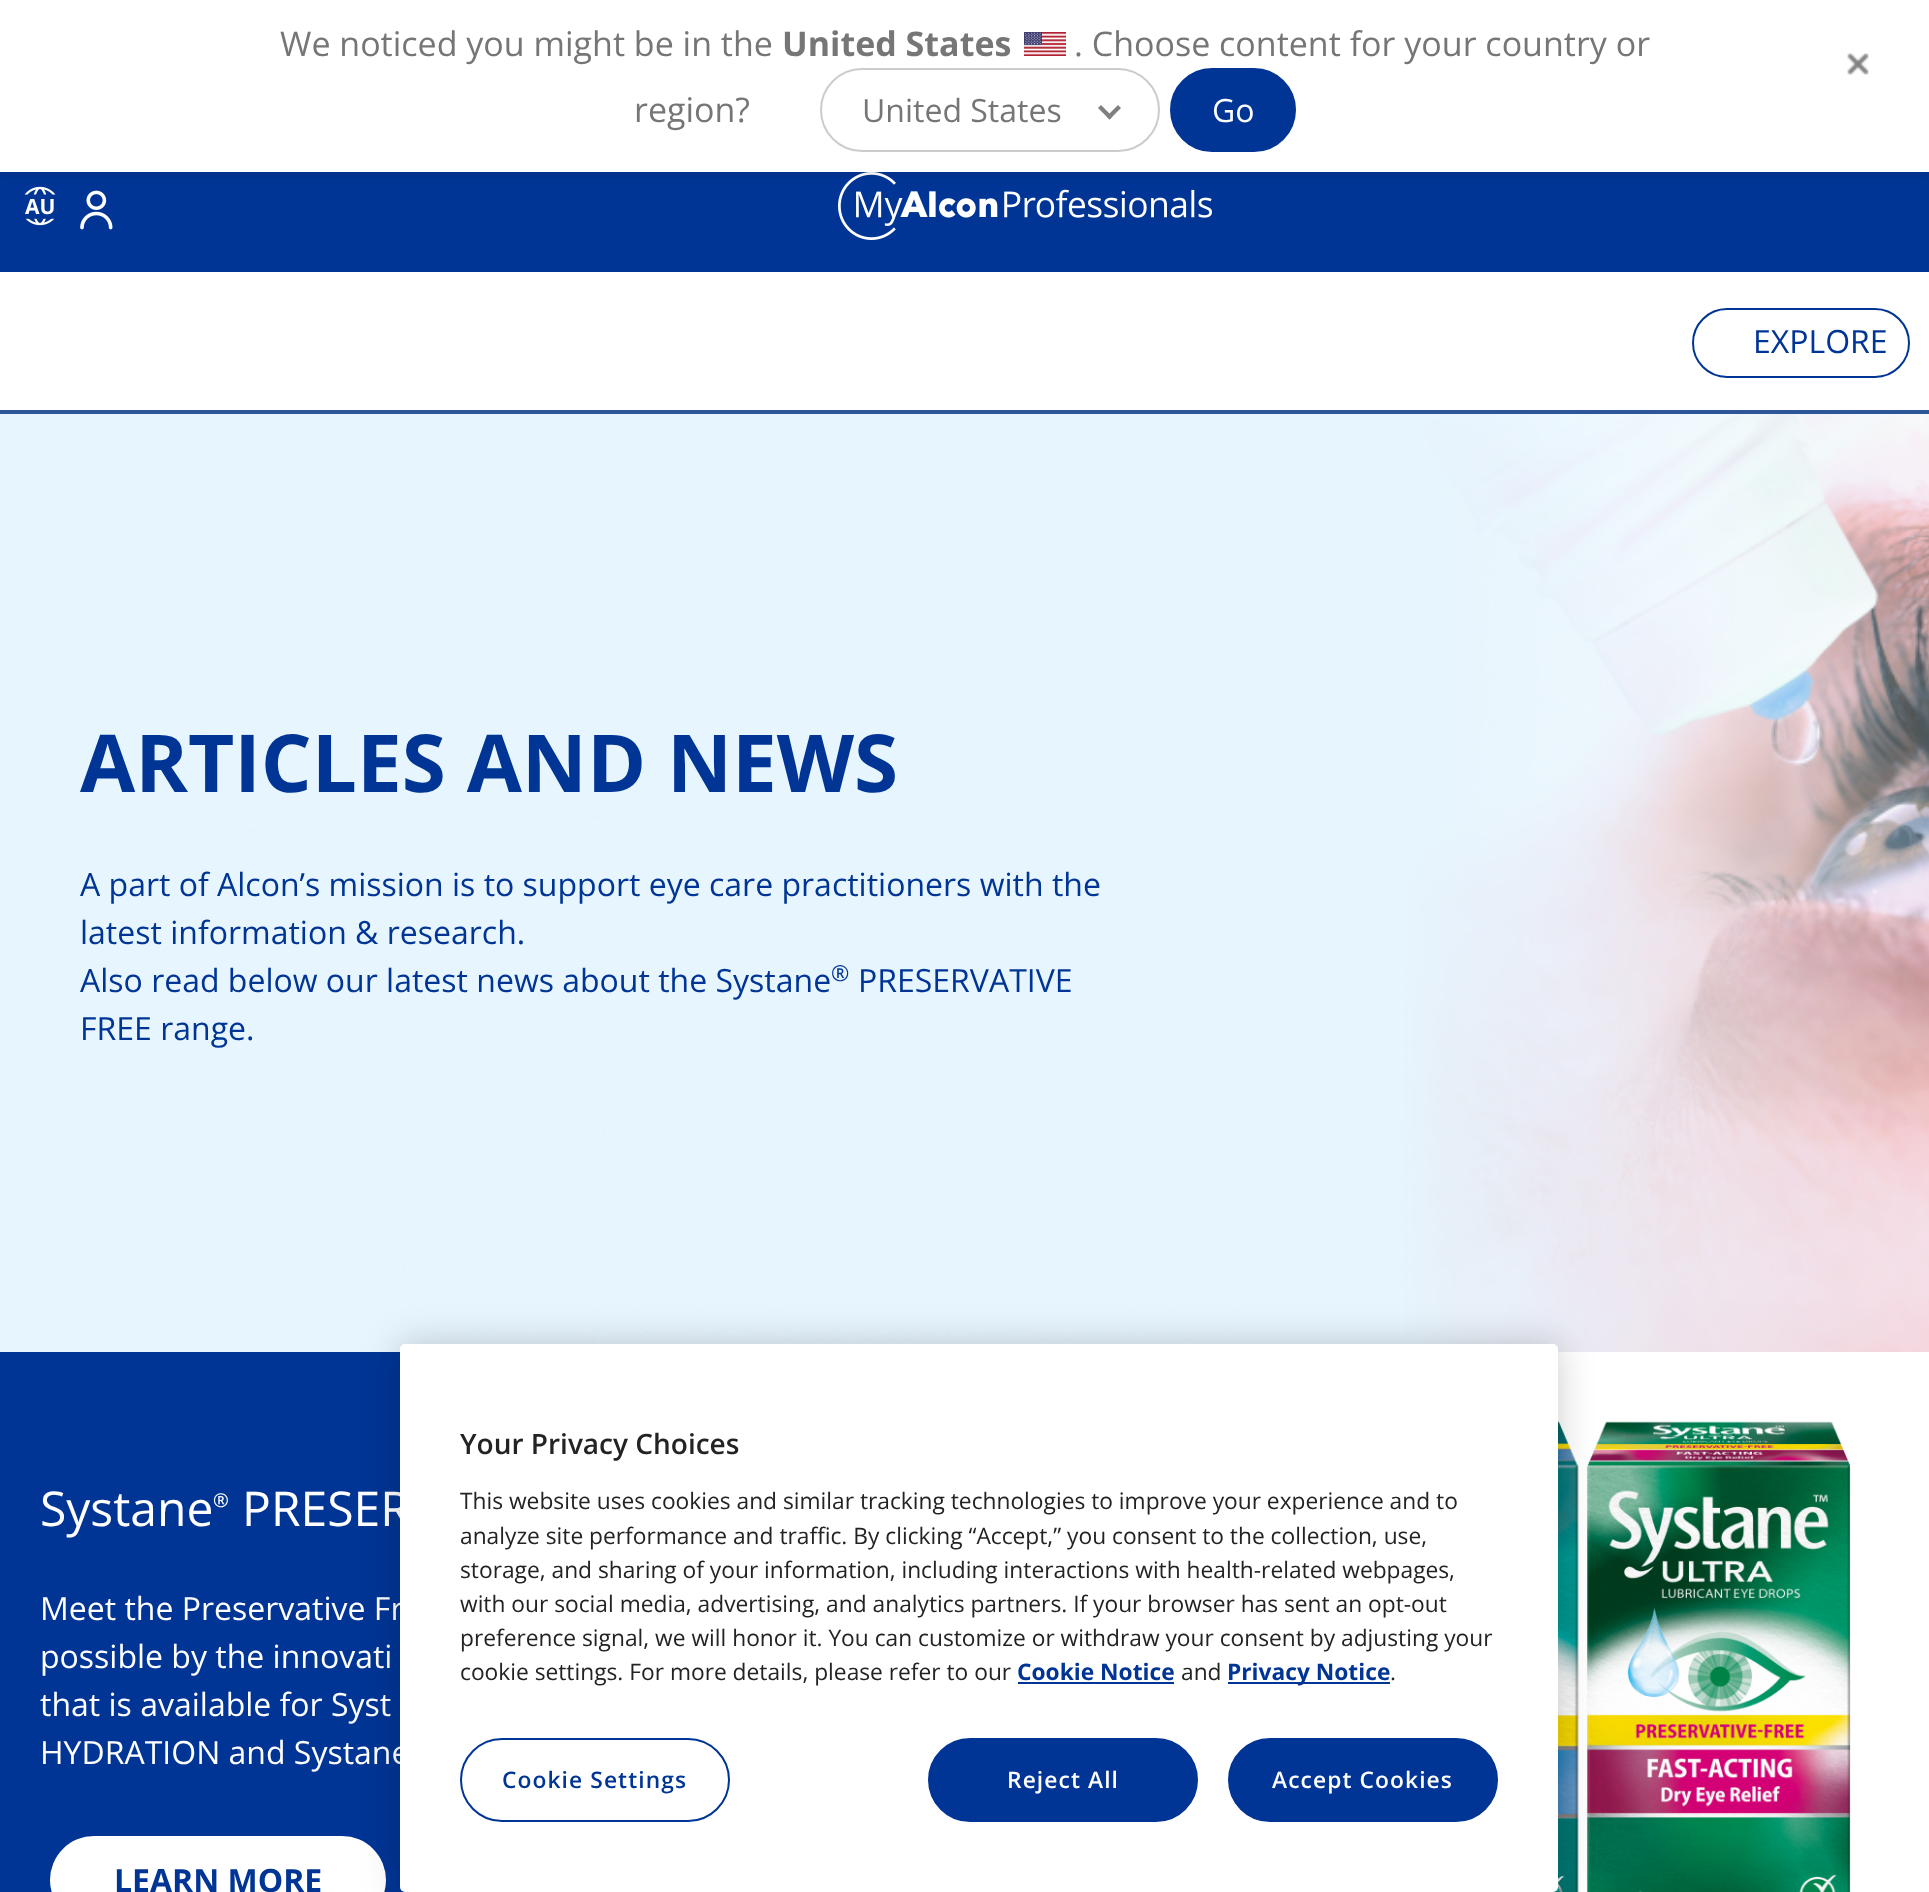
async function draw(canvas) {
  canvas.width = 1929
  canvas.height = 1892
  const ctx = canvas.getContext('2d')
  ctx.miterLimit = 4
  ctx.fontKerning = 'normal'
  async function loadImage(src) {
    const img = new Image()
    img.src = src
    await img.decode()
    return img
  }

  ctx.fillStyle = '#fff'
  ctx.fillRect(0, 0, 1929, 1892)
  ctx.fillStyle = '#003595'
  ctx.fillRect(0, 172, 1929, 100)
  ctx.drawImage(await loadImage('image2.png'), 24, 186, 32, 40)
  ctx.drawImage(await loadImage('image4.png'), 838, 172, 374, 68)
  ctx.save()
  ctx.beginPath()
  ctx.rect(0, 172, 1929, 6)
  ctx.clip()
  ctx.fillStyle = '#0000001a'
  ctx.filter = 'blur(5px)'
  ctx.beginPath()
  ctx.rect(0, 2, 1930, 172)
  ctx.fill()
  ctx.filter = 'none'
  ctx.restore()
  ctx.font = '34px Open Sans'
  ctx.fillStyle = '#767676'
  ctx.fillText('We noticed you might be in the', 280, 56)
  ctx.font = 'bold 34px Open Sans'
  ctx.fillText('United States', 782, 56)
  ctx.drawImage(await loadImage('image0.png'), 1024, 32, 42, 24)
  ctx.font = '34px Open Sans'
  ctx.fillText('. Choose content for your country or', 1074, 56)
  ctx.fillText('region?', 634, 122)
  ctx.drawImage(await loadImage('image1.png'), 1847, 53, 22, 22)
  ctx.beginPath()
  ctx.roundRect(821, 69, 338, 82, 41)
  ctx.strokeStyle = '#ccc'
  ctx.lineWidth = 2
  ctx.stroke()
  ctx.font = '32px Open Sans'
  ctx.fillText('United States', 862, 122)
  ctx.fillStyle = '#808080'
  ctx.beginPath()
  ctx.moveTo(1118, 105)
  ctx.lineTo(1121, 108)
  ctx.lineTo(1109.5, 119.5)
  ctx.lineTo(1106.5, 116.5)
  ctx.closePath()
  ctx.fill()
  ctx.beginPath()
  ctx.moveTo(1101, 105)
  ctx.lineTo(1112.5, 116.5)
  ctx.lineTo(1109.5, 119.5)
  ctx.lineTo(1098, 108)
  ctx.closePath()
  ctx.fill()
  ctx.fillStyle = '#003595'
  ctx.beginPath()
  ctx.roundRect(1171, 69, 124, 82, 41)
  ctx.fill()
  ctx.strokeStyle = '#003595'
  ctx.stroke()
  ctx.fillStyle = '#fff'
  ctx.fillText('Go', 1212, 122)
  ctx.font = 'bold 21px Open Sans'
  ctx.fillText('AU', 25, 214)
  ctx.drawImage(await loadImage('image3.png'), 80, 190, 33, 40)
  ctx.beginPath()
  ctx.roundRect(1693, 309, 216, 68, 34)
  ctx.stroke()
  ctx.font = '32px Open Sans'
  ctx.fillStyle = '#003595'
  ctx.fillText('EXPLORE', 1753, 353)
  ctx.fillStyle = '#2c5697'
  ctx.fillRect(0, 410, 1929, 4)
  ctx.drawImage(await loadImage('image5.png'), 0, 414, 1929, 938)
  ctx.font = 'bold 80px Open Sans'
  ctx.fillStyle = '#003595'
  ctx.fillText('ARTICLES AND NEWS', 80, 792)
  ctx.font = '32px Open Sans'
  ctx.fillText('A part of Alcon’s mission is to support eye care practitioners with the', 80, 896)
  ctx.fillText('latest information & research.', 80, 944)
  ctx.fillText('Also read below our latest news about the Systane', 80, 992)
  ctx.font = '22px Open Sans'
  ctx.fillText('®', 831, 981)
  ctx.font = '32px Open Sans'
  ctx.fillText('PRESERVATIVE', 858, 992)
  ctx.fillText('FREE range.', 80, 1040)
  ctx.fillRect(0, 1352, 405, 540)
  ctx.font = '48px Open Sans'
  ctx.fillStyle = '#fff'
  ctx.fillText('Systane', 40, 1526)
  ctx.font = '500 19px Open Sans'
  ctx.fillText('®', 213, 1507)
  ctx.font = '48px Open Sans'
  ctx.fillText('PRESER', 242, 1526)
  ctx.font = '32px Open Sans'
  ctx.fillText('Meet the Preservative Fr', 40, 1620)
  ctx.fillText('possible by the innovati', 40, 1668)
  ctx.fillText('that is available for Syst', 40, 1716)
  ctx.fillText('HYDRATION and Systane', 40, 1764)
  ctx.beginPath()
  ctx.roundRect(50, 1836, 336, 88, 44)
  ctx.fill()
  ctx.font = 'bold 32px Open Sans'
  ctx.fillStyle = '#003595'
  ctx.fillText('LEARN MORE', 114, 1892)
  ctx.drawImage(await loadImage('image6.png'), 1553, 1421, 298, 471)
  ctx.fillStyle = '#00000033'
  ctx.filter = 'blur(18px)'
  ctx.beginPath()
  ctx.roundRect(400, 1344, 1158, 548, 5)
  ctx.fill()
  ctx.filter = 'none'
  ctx.fillStyle = '#fff'
  ctx.beginPath()
  ctx.roundRect(400, 1344, 1158, 548, 5)
  ctx.fill()
  ctx.font = '600 28px Open Sans'
  ctx.fillStyle = '#232323'
  ctx.fillText('Your Privacy Choices', 460, 1454)
  ctx.font = '22.75px Open Sans'
  ctx.fillText('This website uses cookies and similar tracking technologies to improve your experience and to', 460, 1509)
  ctx.fillText('analyze site performance and traffic. By clicking “Accept,” you consent to the collection, use,', 460, 1544)
  ctx.fillText('storage, and sharing of your information, including interactions with health-related webpages,', 460, 1578)
  ctx.fillText('with our social media, advertising, and analytics partners. If your browser has sent an opt-out', 460, 1612)
  ctx.fillText('preference signal, we will honor it. You can customize or withdraw your consent by adjusting your', 460, 1646)
  ctx.fillText('cookie settings. For more details, please refer to our', 460, 1680)
  ctx.font = 'bold 22.75px Open Sans'
  ctx.fillStyle = '#003595'
  ctx.fillText('Cookie Notice', 1017, 1680)
  ctx.fillRect(1018, 1682, 156, 2)
  ctx.font = '22.75px Open Sans'
  ctx.fillStyle = '#232323'
  ctx.fillText('and', 1181, 1680)
  ctx.fillStyle = '#003595'
  ctx.fillRect(1228, 1682, 162, 2)
  ctx.font = 'bold 22.75px Open Sans'
  ctx.fillText('Privacy Notice', 1227, 1680)
  ctx.font = '22.75px Open Sans'
  ctx.fillStyle = '#232323'
  ctx.fillText('.', 1390, 1680)
  ctx.beginPath()
  ctx.roundRect(461, 1739, 268, 82, 41)
  ctx.stroke()
  ctx.letterSpacing = '1.1px'
  ctx.font = '600 22.75px Open Sans'
  ctx.fillStyle = '#003595'
  ctx.fillText('Cookie Settings', 502, 1788)
  ctx.beginPath()
  ctx.roundRect(929, 1739, 268, 82, 41)
  ctx.fill()
  ctx.stroke()
  ctx.fillStyle = '#fff'
  ctx.fillText('Reject All', 1007, 1788)
  ctx.fillStyle = '#003595'
  ctx.beginPath()
  ctx.roundRect(1229, 1739, 268, 82, 41)
  ctx.fill()
  ctx.stroke()
  ctx.fillStyle = '#fff'
  ctx.fillText('Accept Cookies', 1272, 1788)
}

draw(document.querySelector('canvas'))
